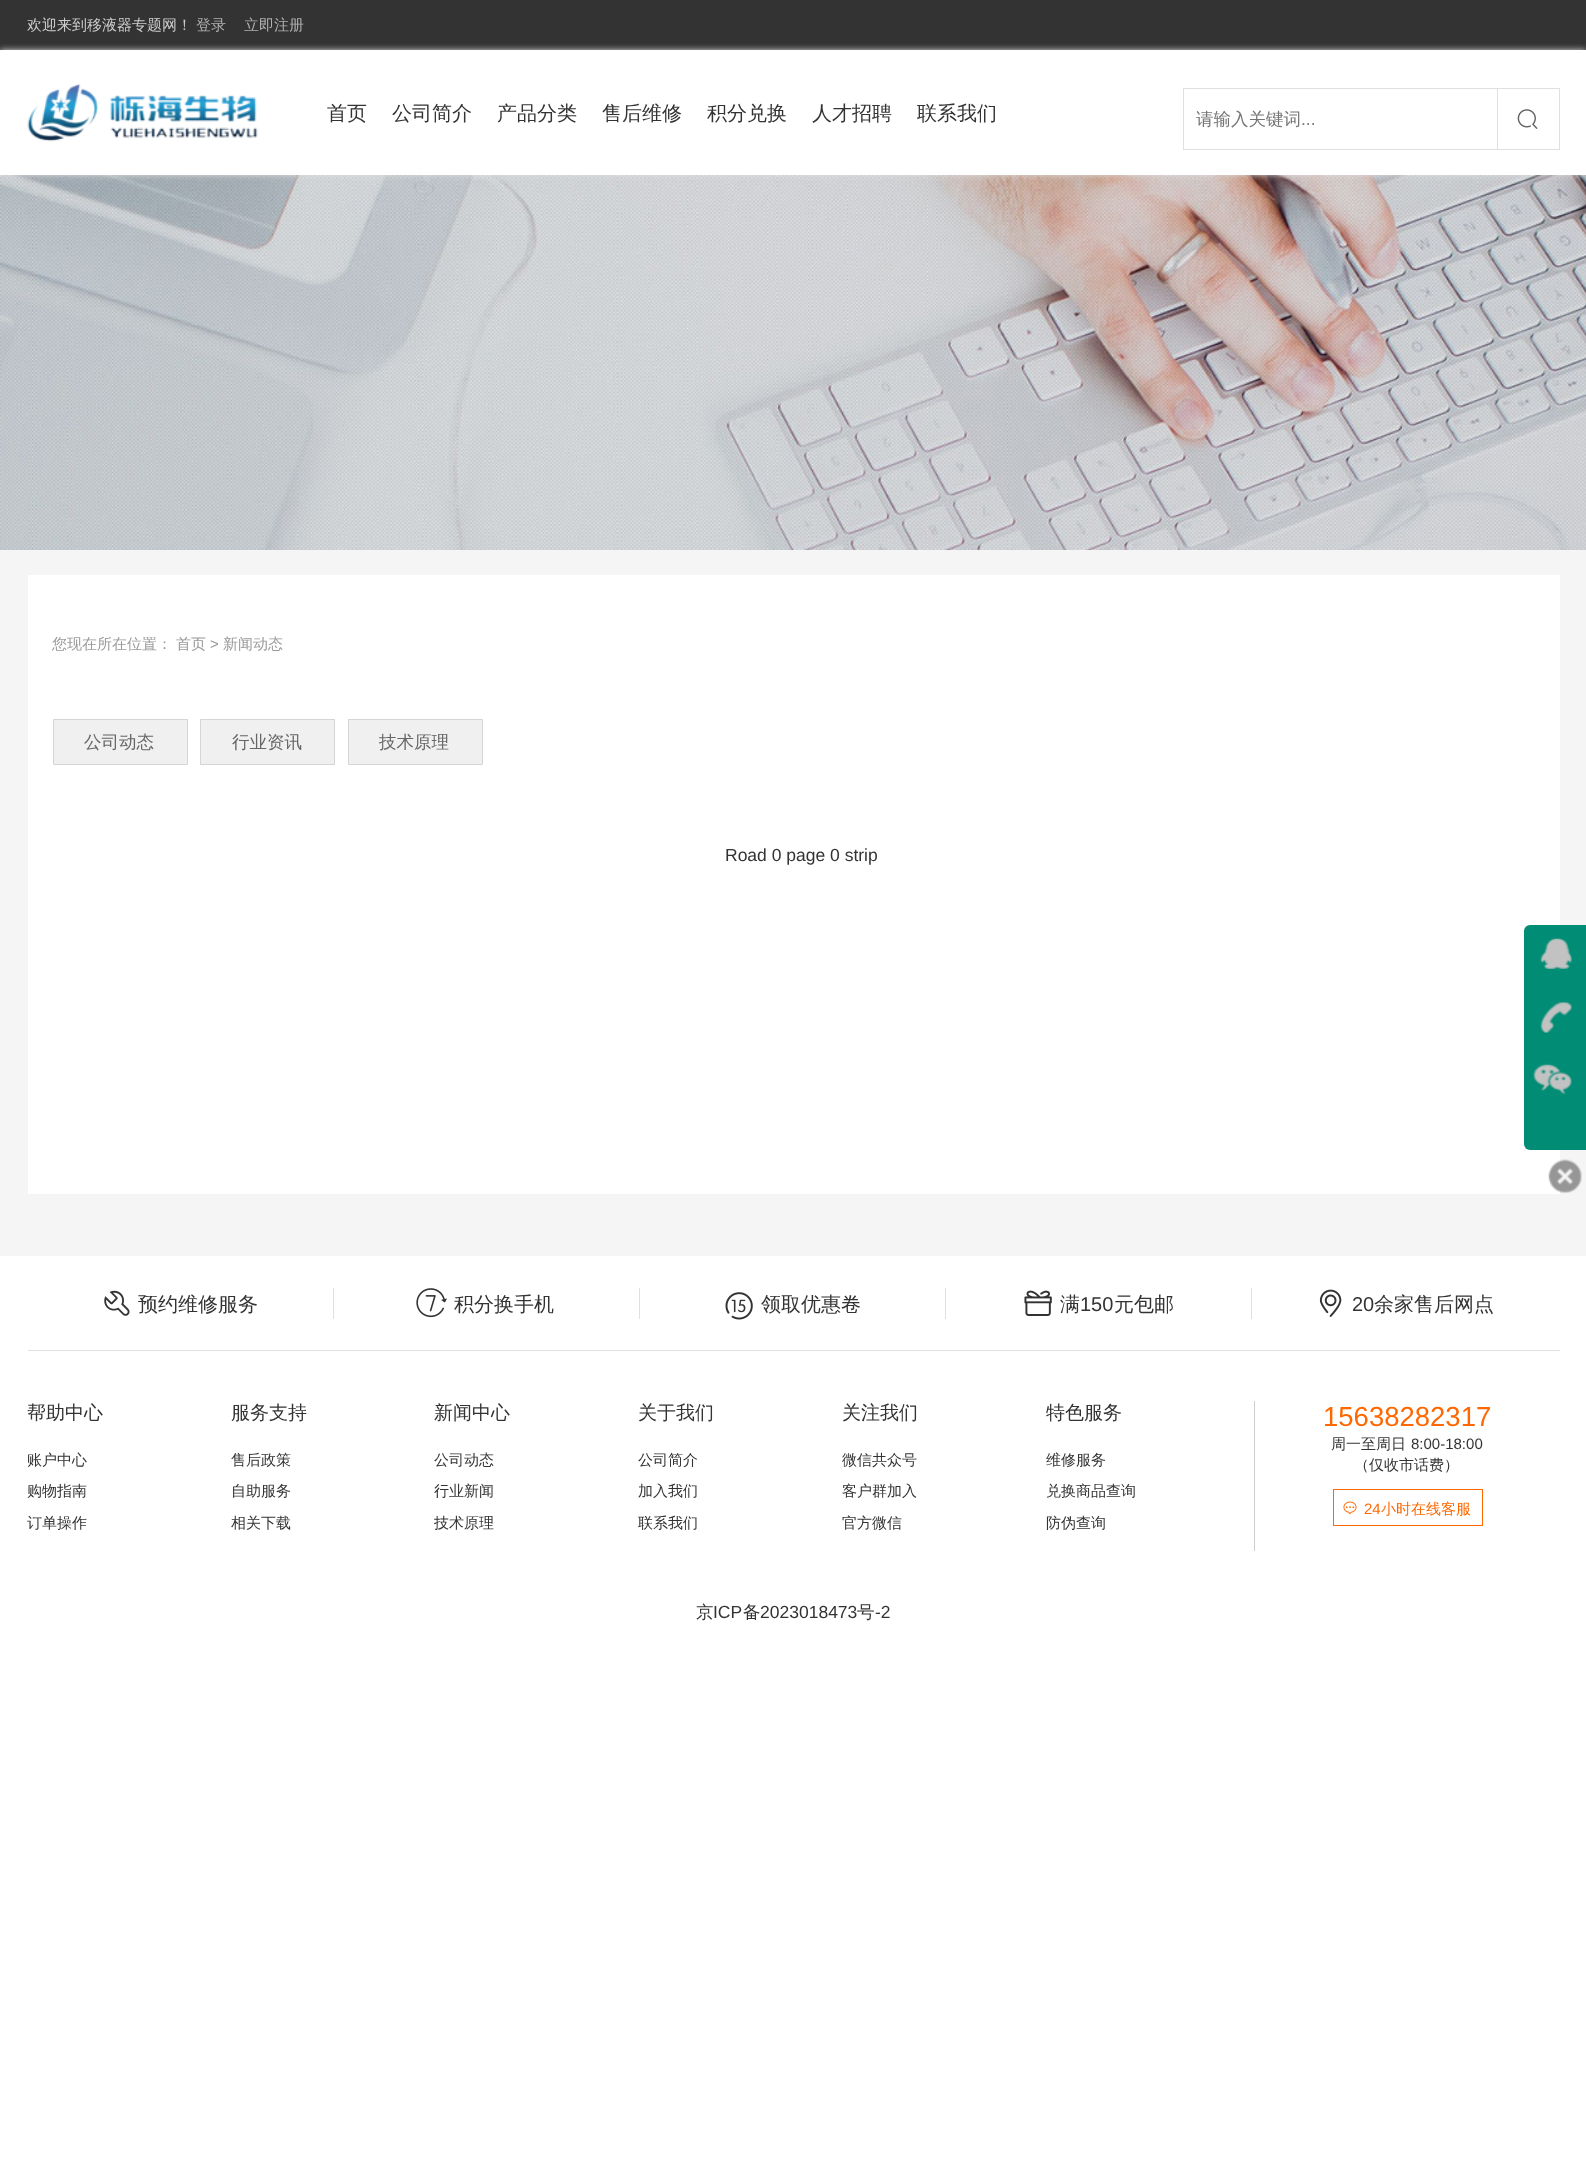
async function draw(canvas) {
  canvas.width = 1586
  canvas.height = 2165
  const ctx = canvas.getContext('2d')
  ctx.miterLimit = 4
  ctx.fontKerning = 'normal'
  async function loadImage(src) {
    const img = new Image()
    img.src = src
    await img.decode()
    return img
  }

  ctx.fillStyle = '#fff'
  ctx.fillRect(0, 0, 1586, 2165)
  ctx.fillStyle = '#333'
  ctx.fillRect(0, 0, 1586, 50)
  ctx.font = '500 15px WenQuanYi Zen Hei'
  ctx.fillStyle = '#ccc'
  ctx.fillText('欢迎来到移液器专题网！', 27, 30)
  ctx.fillStyle = '#b0b0b0'
  ctx.fillText('登录', 196, 30)
  ctx.fillText('立即注册', 244, 30)
  ctx.drawImage(await loadImage('image2.png'), 0, 175, 1586, 375)
  ctx.save()
  ctx.beginPath()
  ctx.moveTo(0, 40)
  ctx.lineTo(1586, 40)
  ctx.lineTo(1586, 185)
  ctx.lineTo(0, 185)
  ctx.closePath()
  ctx.moveTo(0, 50)
  ctx.lineTo(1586, 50)
  ctx.lineTo(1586, 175)
  ctx.lineTo(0, 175)
  ctx.closePath()
  ctx.clip('evenodd')
  ctx.fillStyle = '#ddd'
  ctx.filter = 'blur(3px)'
  ctx.beginPath()
  ctx.rect(0, 50, 1586, 125)
  ctx.fill()
  ctx.filter = 'none'
  ctx.restore()
  ctx.drawImage(await loadImage('image0.png'), 27, 83, 231, 59)
  ctx.font = '500 20px WenQuanYi Zen Hei'
  ctx.fillStyle = '#333'
  ctx.fillText('首页', 327, 120)
  ctx.fillText('公司简介', 392, 120)
  ctx.fillText('产品分类', 497, 120)
  ctx.fillText('售后维修', 602, 120)
  ctx.fillText('积分兑换', 707, 120)
  ctx.fillText('人才招聘', 812, 120)
  ctx.fillText('联系我们', 917, 120)
  ctx.strokeStyle = '#e0e0e0'
  ctx.strokeRect(1183.5, 88.5, 314, 61)
  ctx.font = '500 17.5px WenQuanYi Zen Hei'
  ctx.fillStyle = '#757575'
  ctx.fillText('请输入关键词', 1196, 125)
  ctx.font = '17.5px Liberation Sans'
  ctx.fillText('...', 1301, 125)
  ctx.fillStyle = '#e0e0e0'
  ctx.fillRect(1498, 88, 62, 1)
  ctx.fillRect(1559, 88, 1, 62)
  ctx.fillRect(1498, 149, 62, 1)
  ctx.drawImage(await loadImage('image1.png'), 1517, 109, 21, 20)
  ctx.fillStyle = '#f5f5f5'
  ctx.fillRect(0, 550, 1586, 706)
  ctx.fillStyle = '#fff'
  ctx.fillRect(28, 575, 1532, 619)
  ctx.font = '500 15px WenQuanYi Zen Hei'
  ctx.fillStyle = '#999'
  ctx.fillText('您现在所在位置：', 52, 649)
  ctx.fillText('首页', 176, 649)
  ctx.font = '15px Liberation Sans'
  ctx.fillText('>', 210, 649)
  ctx.font = '500 15px WenQuanYi Zen Hei'
  ctx.fillText('新闻动态', 223, 649)
  ctx.fillStyle = '#f0f0f0'
  ctx.beginPath()
  ctx.rect(53.5, 719.5, 134, 45)
  ctx.fill()
  ctx.strokeStyle = '#d5d5d5'
  ctx.stroke()
  ctx.font = '500 17.5px WenQuanYi Zen Hei'
  ctx.fillStyle = '#666'
  ctx.fillText('公司动态', 84, 748)
  ctx.fillStyle = '#f0f0f0'
  ctx.beginPath()
  ctx.rect(200.5, 719.5, 134, 45)
  ctx.fill()
  ctx.stroke()
  ctx.fillStyle = '#666'
  ctx.fillText('行业资讯', 232, 748)
  ctx.fillStyle = '#f0f0f0'
  ctx.beginPath()
  ctx.rect(348.5, 719.5, 134, 45)
  ctx.fill()
  ctx.stroke()
  ctx.fillStyle = '#666'
  ctx.fillText('技术原理', 379, 748)
  ctx.font = '17.5px Liberation Sans'
  ctx.fillStyle = '#333'
  ctx.fillText('Road 0 page 0 strip', 725, 861)
  ctx.fillStyle = '#018d75'
  ctx.beginPath()
  ctx.roundRect(1524, 925, 62, 225, [6, 0, 0, 6])
  ctx.fill()
  ctx.drawImage(await loadImage('image3.png'), 1540, 938, 32, 31)
  ctx.drawImage(await loadImage('image4.png'), 1540, 1001, 32, 32)
  ctx.drawImage(await loadImage('image5.png'), 1533, 1063, 39, 32)
  ctx.drawImage(await loadImage('image6.png'), 1548, 1159, 34, 34)
  ctx.fillStyle = '#e0e0e0'
  ctx.fillRect(28, 1350, 1532, 1)
  ctx.fillRect(333, 1288, 1, 31)
  ctx.drawImage(await loadImage('image7.png'), 104, 1290, 26, 26)
  ctx.font = '500 20px WenQuanYi Zen Hei'
  ctx.fillStyle = '#333'
  ctx.fillText('预约维修服务', 138, 1311)
  ctx.fillStyle = '#e0e0e0'
  ctx.fillRect(639, 1288, 1, 31)
  ctx.drawImage(await loadImage('image8.png'), 416, 1288, 31, 30)
  ctx.fillStyle = '#333'
  ctx.fillText('积分换手机', 454, 1311)
  ctx.fillStyle = '#e0e0e0'
  ctx.fillRect(945, 1288, 1, 31)
  ctx.drawImage(await loadImage('image9.png'), 725, 1292, 28, 28)
  ctx.fillStyle = '#333'
  ctx.fillText('领取优惠卷', 761, 1311)
  ctx.fillStyle = '#e0e0e0'
  ctx.fillRect(1251, 1288, 1, 31)
  ctx.drawImage(await loadImage('image10.png'), 1024, 1290, 28, 26)
  ctx.fillStyle = '#333'
  ctx.fillText('满', 1060, 1311)
  ctx.font = '20px Liberation Sans'
  ctx.fillText('150', 1080, 1311)
  ctx.font = '500 20px WenQuanYi Zen Hei'
  ctx.fillText('元包邮', 1114, 1311)
  ctx.drawImage(await loadImage('image11.png'), 1319, 1289, 23, 28)
  ctx.font = '20px Liberation Sans'
  ctx.fillText('20', 1352, 1311)
  ctx.font = '500 20px WenQuanYi Zen Hei'
  ctx.fillText('余家售后网点', 1374, 1311)
  ctx.font = '500 19px WenQuanYi Zen Hei'
  ctx.fillText('帮助中心', 27, 1419)
  ctx.font = '500 15px WenQuanYi Zen Hei'
  ctx.fillText('账户中心', 27, 1465)
  ctx.fillText('购物指南', 27, 1496)
  ctx.fillText('订单操作', 27, 1528)
  ctx.font = '500 19px WenQuanYi Zen Hei'
  ctx.fillText('服务支持', 231, 1419)
  ctx.font = '500 15px WenQuanYi Zen Hei'
  ctx.fillText('售后政策', 231, 1465)
  ctx.fillText('自助服务', 231, 1496)
  ctx.fillText('相关下载', 231, 1528)
  ctx.font = '500 19px WenQuanYi Zen Hei'
  ctx.fillText('新闻中心', 434, 1419)
  ctx.font = '500 15px WenQuanYi Zen Hei'
  ctx.fillText('公司动态', 434, 1465)
  ctx.fillText('行业新闻', 434, 1496)
  ctx.fillText('技术原理', 434, 1528)
  ctx.font = '500 19px WenQuanYi Zen Hei'
  ctx.fillText('关于我们', 638, 1419)
  ctx.font = '500 15px WenQuanYi Zen Hei'
  ctx.fillText('公司简介', 638, 1465)
  ctx.fillText('加入我们', 638, 1496)
  ctx.fillText('联系我们', 638, 1528)
  ctx.font = '500 19px WenQuanYi Zen Hei'
  ctx.fillText('关注我们', 842, 1419)
  ctx.font = '500 15px WenQuanYi Zen Hei'
  ctx.fillText('微信共众号', 842, 1465)
  ctx.fillText('客户群加入', 842, 1496)
  ctx.fillText('官方微信', 842, 1528)
  ctx.font = '500 19px WenQuanYi Zen Hei'
  ctx.fillText('特色服务', 1046, 1419)
  ctx.font = '500 15px WenQuanYi Zen Hei'
  ctx.fillText('维修服务', 1046, 1465)
  ctx.fillText('兑换商品查询', 1046, 1496)
  ctx.fillText('防伪查询', 1046, 1528)
  ctx.fillStyle = '#ccc'
  ctx.fillRect(1254, 1401, 1, 150)
  ctx.font = '27.5px Liberation Sans'
  ctx.fillStyle = '#ff6700'
  ctx.fillText('15638282317', 1323, 1426)
  ctx.font = '500 15px WenQuanYi Zen Hei'
  ctx.fillStyle = '#333'
  ctx.fillText('周一至周日', 1331, 1449)
  ctx.font = '15px Liberation Sans'
  ctx.fillText('8:00-18:00', 1411, 1449)
  ctx.font = '500 15px WenQuanYi Zen Hei'
  ctx.fillText('（仅收市话费）', 1354, 1470)
  ctx.strokeStyle = '#ff6700'
  ctx.strokeRect(1333.5, 1489.5, 149, 36)
  ctx.drawImage(await loadImage('image12.png'), 1343, 1501, 14, 14)
  ctx.font = '15px Liberation Sans'
  ctx.fillStyle = '#ff6700'
  ctx.fillText('24', 1364, 1514)
  ctx.font = '500 15px WenQuanYi Zen Hei'
  ctx.fillText('小时在线客服', 1381, 1514)
  ctx.font = '500 17.5px WenQuanYi Zen Hei'
  ctx.fillStyle = '#333'
  ctx.fillText('京', 696, 1618)
  ctx.font = '17.5px Liberation Sans'
  ctx.fillText('ICP', 713, 1618)
  ctx.font = '500 17.5px WenQuanYi Zen Hei'
  ctx.fillText('备', 743, 1618)
  ctx.font = '17.5px Liberation Sans'
  ctx.fillText('2023018473', 760, 1618)
  ctx.font = '500 17.5px WenQuanYi Zen Hei'
  ctx.fillText('号', 857, 1618)
  ctx.font = '17.5px Liberation Sans'
  ctx.fillText('-2', 875, 1618)
}

draw(document.querySelector('canvas'))
